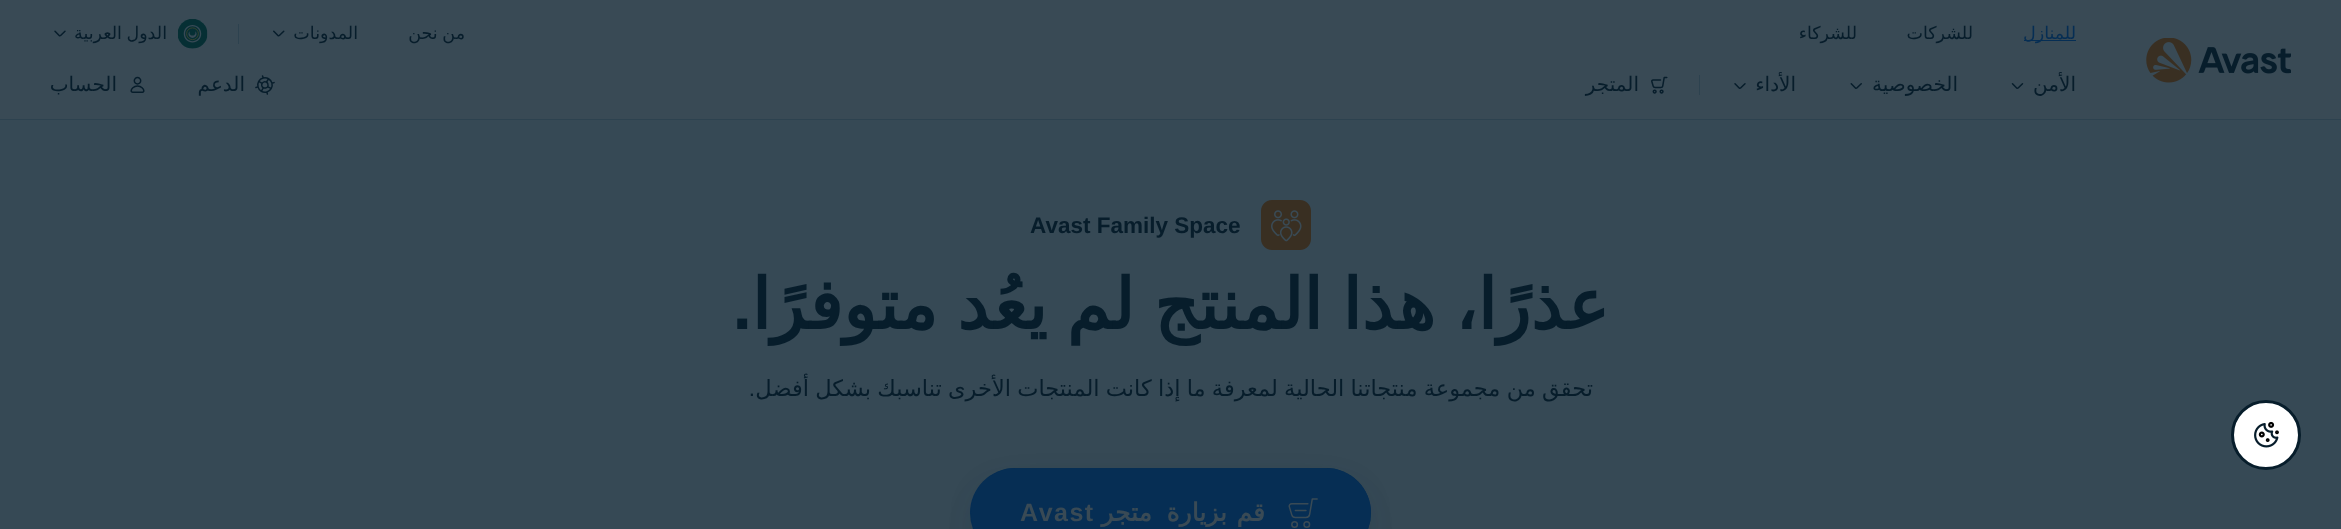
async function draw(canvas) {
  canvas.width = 2341
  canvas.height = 529
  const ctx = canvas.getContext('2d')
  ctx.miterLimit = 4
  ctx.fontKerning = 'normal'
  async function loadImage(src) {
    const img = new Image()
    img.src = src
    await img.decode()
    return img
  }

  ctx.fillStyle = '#394a55'
  ctx.fillRect(0, 0, 2341, 529)
  ctx.fillStyle = '#364955'
  ctx.fillRect(0, 120, 2341, 409)
  ctx.fillStyle = '#fff'
  ctx.beginPath()
  ctx.arc(2266, 435, 33.5, 0, 2 * Math.PI)
  ctx.fill()
  ctx.strokeStyle = '#071d2b'
  ctx.lineWidth = 3
  ctx.stroke()
  ctx.drawImage(await loadImage('image0.png'), 2254, 421, 25, 27)
  ctx.fillStyle = '#2d424f'
  ctx.fillRect(0, 119, 2341, 1)
  ctx.drawImage(await loadImage('image1.png'), 2146, 38, 145, 45)
  ctx.fillStyle = '#062e54'
  ctx.fillRect(2024, 40, 52, 1)
  ctx.direction = 'rtl'
  ctx.font = '17.5px DejaVu Sans'
  ctx.fillText('للمنازل', 2076, 39)
  ctx.fillStyle = '#071d2b'
  ctx.fillText('للشركات', 1973, 39)
  ctx.fillText('للشركاء', 1857, 39)
  ctx.wordSpacing = '-1px'
  ctx.fillText('من نحن', 465, 39)
  ctx.wordSpacing = '0px'
  ctx.fillText('المدونات', 358, 39)
  ctx.drawImage(await loadImage('image2.png'), 273, 30, 12, 7)
  ctx.fillStyle = '#2d424f'
  ctx.fillRect(238, 24, 1, 20)
  ctx.drawImage(await loadImage('image3.png'), 178, 19, 30, 30)
  ctx.wordSpacing = '-1px'
  ctx.fillStyle = '#071d2b'
  ctx.fillText('الدول العربية', 167, 39)
  ctx.drawImage(await loadImage('image4.png'), 54, 30, 12, 7)
  ctx.wordSpacing = '0px'
  ctx.font = '20px DejaVu Sans'
  ctx.fillText('الأمن', 2076, 91)
  ctx.drawImage(await loadImage('image5.png'), 2011, 83, 13, 6)
  ctx.fillText('الخصوصية', 1958, 91)
  ctx.drawImage(await loadImage('image6.png'), 1850, 83, 12, 6)
  ctx.fillText('الأداء', 1796, 91)
  ctx.drawImage(await loadImage('image7.png'), 1734, 83, 12, 6)
  ctx.fillStyle = '#2d424f'
  ctx.fillRect(1699, 75, 1, 20)
  ctx.drawImage(await loadImage('image8.png'), 1651, 76, 17, 18)
  ctx.fillStyle = '#071d2b'
  ctx.fillText('المتجر', 1639, 91)
  ctx.drawImage(await loadImage('image9.png'), 255, 75, 20, 20)
  ctx.fillText('الدعم', 245, 91)
  ctx.drawImage(await loadImage('image10.png'), 130, 76, 15, 17)
  ctx.fillText('الحساب', 117, 91)
  ctx.drawImage(await loadImage('image11.png'), 1261, 200, 50, 50)
  ctx.direction = 'ltr'
  ctx.font = 'bold 22.5px Liberation Sans'
  ctx.fillText('Avast Family Space', 1030, 233)
  ctx.wordSpacing = '-2.75px'
  ctx.direction = 'rtl'
  ctx.font = 'bold 70px DejaVu Sans'
  ctx.fillText('عذرًا، هذا المنتج لم يعُد متوفرًا', 1609, 329)
  ctx.wordSpacing = '0px'
  ctx.font = 'bold 70px Liberation Sans'
  ctx.fillText('.', 752, 329)
  ctx.wordSpacing = '-0.9px'
  ctx.font = '22.5px DejaVu Sans'
  ctx.fillText('تحقق من مجموعة منتجاتنا الحالية لمعرفة ما إذا كانت المنتجات الأخرى تناسبك بشكل أفضل', 1593, 396)
  ctx.wordSpacing = '0px'
  ctx.font = '22.5px Liberation Sans'
  ctx.fillText('.', 755, 396)
  ctx.fillStyle = '#062e5452'
  ctx.filter = 'blur(20px)'
  ctx.beginPath()
  ctx.roundRect(990, 498, 361, 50, 25)
  ctx.fill()
  ctx.filter = 'none'
  ctx.fillStyle = '#071d2b52'
  ctx.filter = 'blur(20px)'
  ctx.beginPath()
  ctx.roundRect(990, 508, 361, 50, 25)
  ctx.fill()
  ctx.filter = 'none'
  ctx.fillStyle = '#062e54'
  ctx.beginPath()
  ctx.roundRect(970, 468, 401, 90, 45)
  ctx.fill()
  ctx.beginPath()
  ctx.roundRect(971, 468, 400, 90, 45)
  ctx.fill()
  ctx.drawImage(await loadImage('image12.png'), 1288, 498, 30, 30)
  ctx.letterSpacing = '1.5px'
  ctx.font = 'bold 25px DejaVu Sans'
  ctx.fillStyle = '#394a55'
  ctx.fillText('قم', 1265, 521)
  ctx.fillText('بزيارة', 1227, 521)
  ctx.fillText('متجر', 1152, 521)
  ctx.direction = 'ltr'
  ctx.font = 'bold 25px Liberation Sans'
  ctx.fillText('Avast', 1020, 521)
}

draw(document.querySelector('canvas'))
